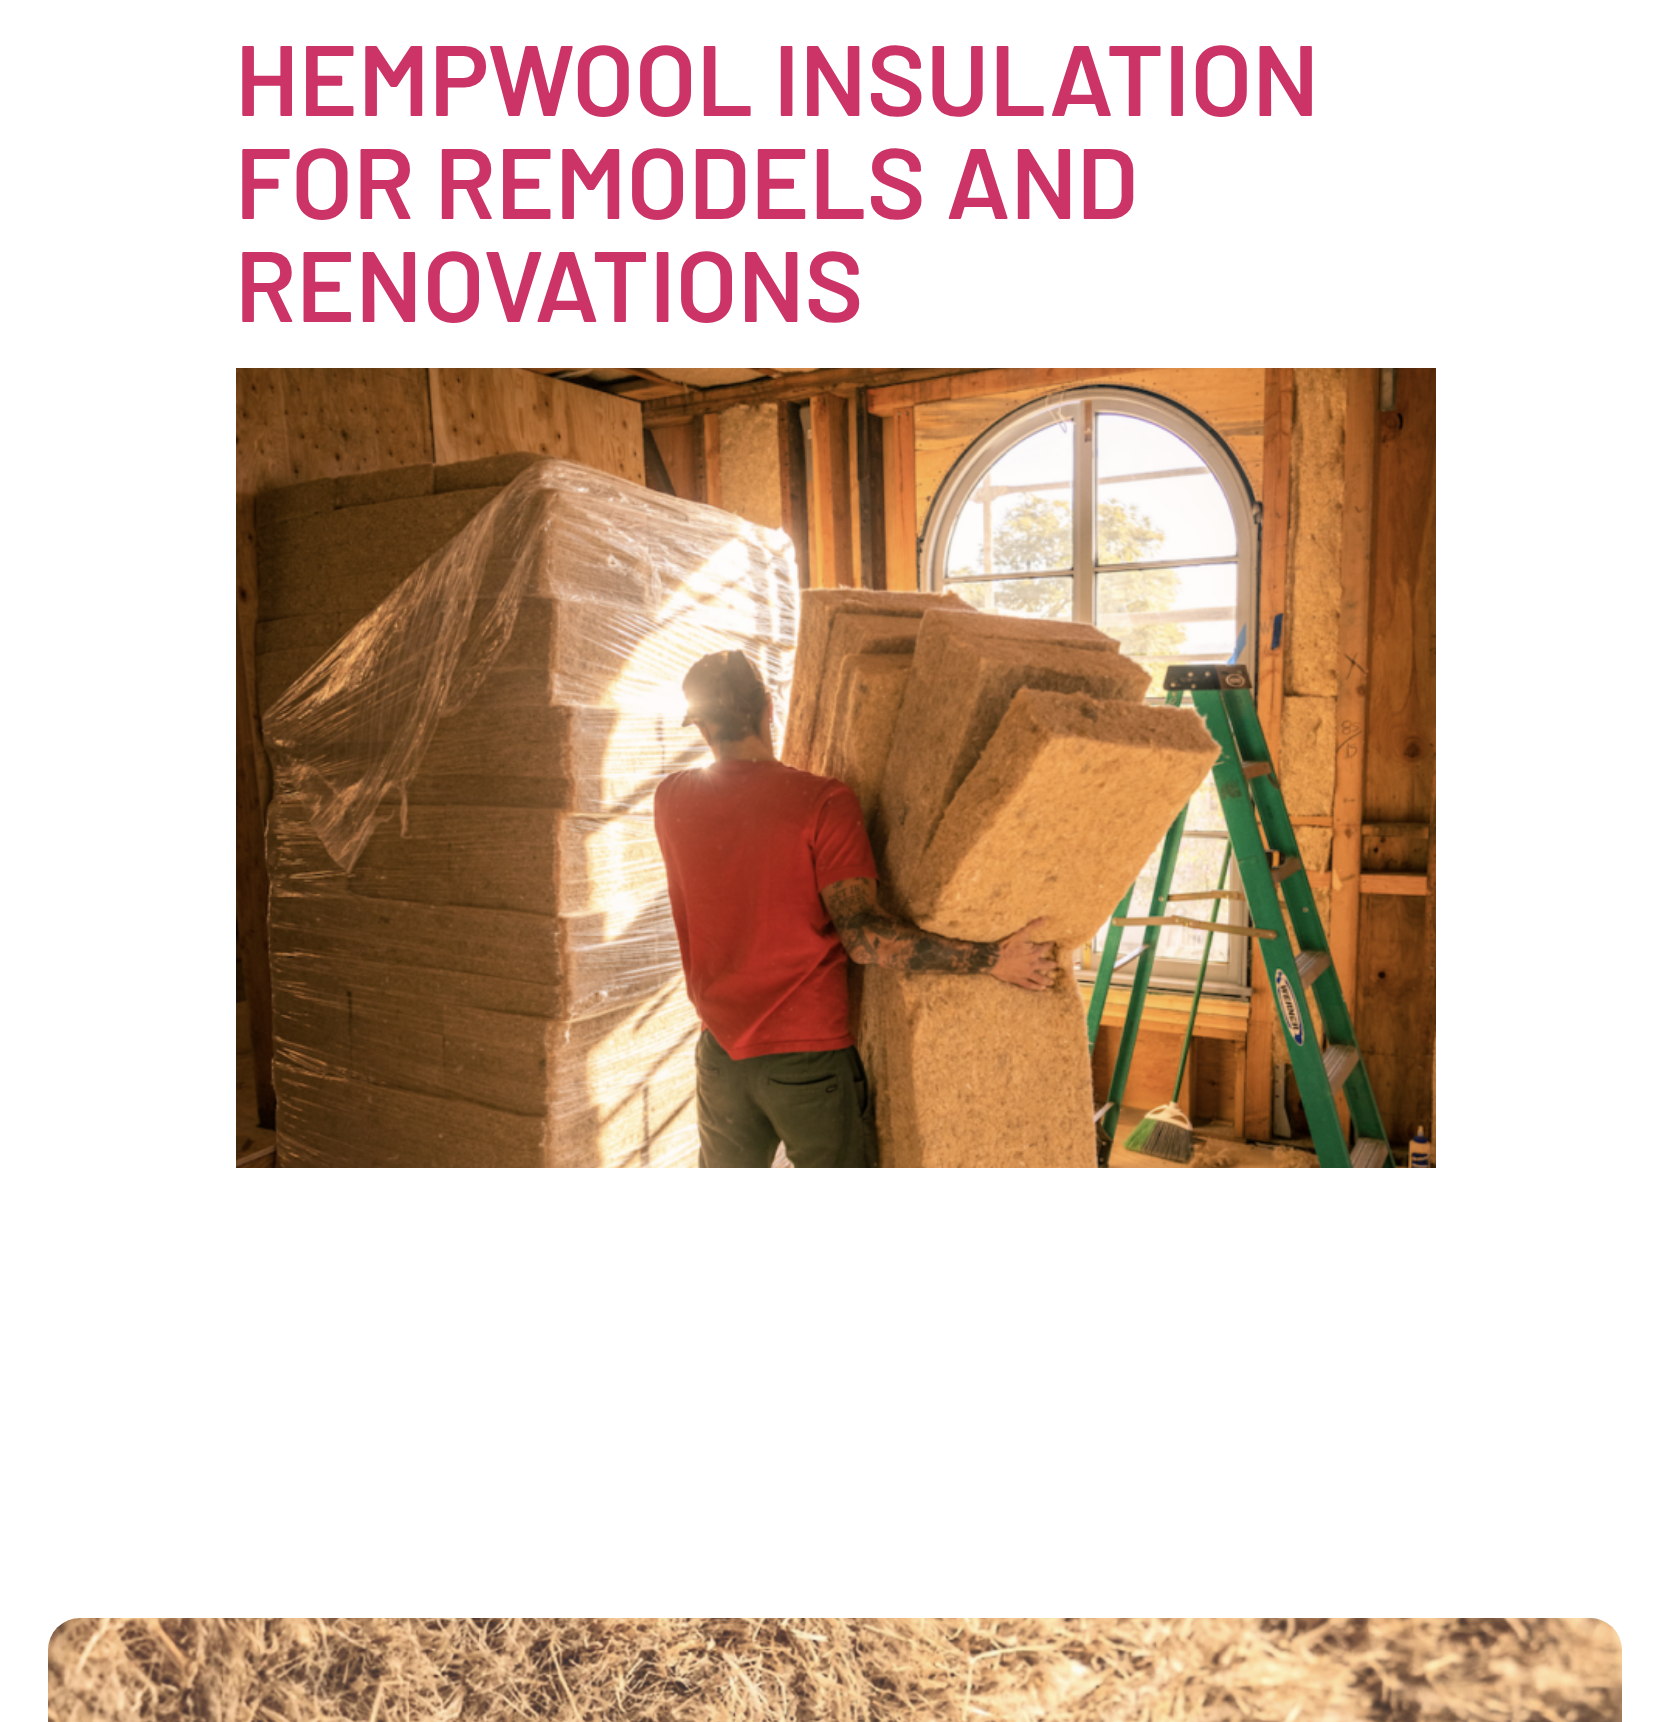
async function draw(canvas) {
  canvas.width = 1670
  canvas.height = 1722
  const ctx = canvas.getContext('2d')
  ctx.miterLimit = 4
  ctx.fontKerning = 'normal'
  async function loadImage(src) {
    const img = new Image()
    img.src = src
    await img.decode()
    return img
  }

  ctx.fillStyle = '#fff'
  ctx.fillRect(0, 0, 1670, 1722)
  ctx.font = '600 100px Barlow'
  ctx.fillStyle = '#c36'
  ctx.fillText('HEMPWOOL INSULATION', 235, 116)
  ctx.fillText('FOR REMODELS AND', 235, 219)
  ctx.fillText('RENOVATIONS', 235, 322)
  ctx.drawImage(await loadImage('image0.png'), 236, 368, 1200, 800)
  ctx.drawImage(await loadImage('image1.png'), 48, 1618, 1574, 104)
}

draw(document.querySelector('canvas'))
